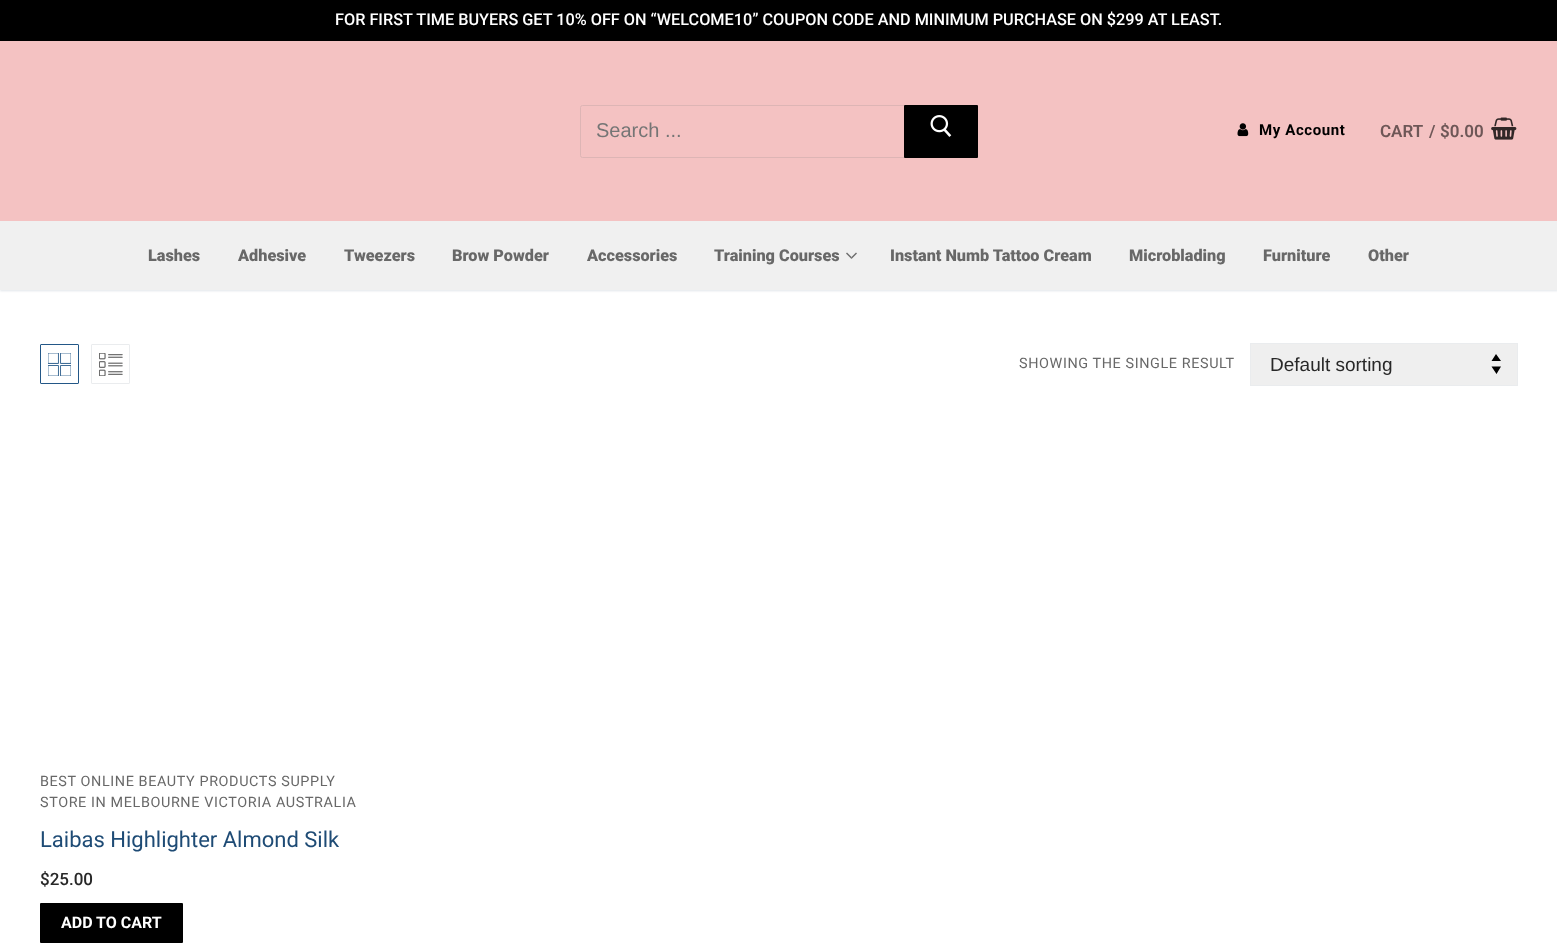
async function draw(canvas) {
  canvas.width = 1557
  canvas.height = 951
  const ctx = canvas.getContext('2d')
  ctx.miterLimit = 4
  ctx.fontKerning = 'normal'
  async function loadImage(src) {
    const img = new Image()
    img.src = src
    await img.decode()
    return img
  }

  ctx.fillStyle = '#fff'
  ctx.fillRect(0, 0, 1557, 951)
  ctx.fillStyle = '#000'
  ctx.fillRect(0, 0, 1557, 41)
  ctx.font = '500 16.25px Roboto'
  ctx.fillStyle = '#fff'
  ctx.fillText('FOR FIRST TIME BUYERS GET 10% OFF ON “WELCOME10” COUPON CODE AND MINIMUM PURCHASE ON $299 AT LEAST.', 335, 25)
  ctx.fillStyle = '#f4c2c2'
  ctx.fillRect(0, 41, 1557, 180)
  ctx.beginPath()
  ctx.roundRect(580.5, 105.5, 373, 52, 2)
  ctx.strokeStyle = '#ddb5b5'
  ctx.stroke()
  ctx.font = '20px Liberation Sans'
  ctx.fillStyle = '#757575'
  ctx.fillText('Search ...', 596, 137)
  ctx.fillStyle = '#000'
  ctx.beginPath()
  ctx.roundRect(904, 105, 74, 53, 1)
  ctx.fill()
  ctx.drawImage(await loadImage('image0.png'), 930, 115, 22, 22)
  ctx.drawImage(await loadImage('image1.png'), 1237, 123, 12, 14)
  ctx.letterSpacing = '0.6px'
  ctx.font = 'bold 15px Roboto'
  ctx.fillText('My Account', 1259, 135)
  ctx.letterSpacing = '0px'
  ctx.font = '600 17px Roboto'
  ctx.fillStyle = '#6e5757'
  ctx.fillText('CART', 1380, 137)
  ctx.fillText('/', 1429, 137)
  ctx.fillText('$0.00', 1440, 137)
  ctx.drawImage(await loadImage('image2.png'), 1491, 117, 26, 23)
  ctx.fillStyle = '#e1e5ea'
  ctx.filter = 'blur(1px)'
  ctx.beginPath()
  ctx.rect(0, 223, 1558, 68)
  ctx.fill()
  ctx.filter = 'none'
  ctx.fillStyle = '#f0f0f0'
  ctx.fillRect(0, 221, 1557, 69)
  ctx.font = '900 16.25px Roboto'
  ctx.fillStyle = '#686868'
  ctx.fillText('Lashes', 148, 261)
  ctx.fillText('Adhesive', 238, 261)
  ctx.fillText('Tweezers', 344, 261)
  ctx.fillText('Brow Powder', 452, 261)
  ctx.fillText('Accessories', 587, 261)
  ctx.fillText('Training Courses', 714, 261)
  ctx.fillStyle = '#6c6c6c'
  ctx.beginPath()
  ctx.moveTo(851.5, 259)
  ctx.lineTo(846, 253.5)
  ctx.lineTo(847, 252.5)
  ctx.lineTo(851.5, 257)
  ctx.closePath()
  ctx.fill()
  ctx.fillStyle = '#0000008c'
  ctx.beginPath()
  ctx.moveTo(857, 253.5)
  ctx.lineTo(851.5, 259)
  ctx.lineTo(851.5, 257)
  ctx.lineTo(856, 252.5)
  ctx.closePath()
  ctx.fill()
  ctx.fillStyle = '#686868'
  ctx.fillText('Instant Numb Tattoo Cream', 890, 261)
  ctx.fillText('Microblading', 1129, 261)
  ctx.fillText('Furniture', 1263, 261)
  ctx.fillText('Other', 1368, 261)
  ctx.beginPath()
  ctx.roundRect(40.5, 344.5, 38, 39, 0.5)
  ctx.strokeStyle = '#235787'
  ctx.stroke()
  ctx.drawImage(await loadImage('image3.png'), 48, 353, 23, 23)
  ctx.beginPath()
  ctx.roundRect(91.5, 344.5, 38, 39, 0.5)
  ctx.strokeStyle = '#eaecee'
  ctx.stroke()
  ctx.drawImage(await loadImage('image4.png'), 99, 353, 24, 23)
  ctx.letterSpacing = '0.6px'
  ctx.font = '14.4px Roboto'
  ctx.fillText('SHOWING THE SINGLE RESULT', 1019, 368)
  ctx.fillStyle = '#efefef'
  ctx.fillRect(1251, 344, 266, 41)
  ctx.fillStyle = '#000'
  ctx.beginPath()
  ctx.moveTo(1496, 354)
  ctx.lineTo(1491.5, 361)
  ctx.lineTo(1501, 361)
  ctx.closePath()
  ctx.moveTo(1496.5, 374)
  ctx.lineTo(1501, 366.5)
  ctx.lineTo(1491.5, 366.5)
  ctx.closePath()
  ctx.fill()
  ctx.strokeRect(1250.5, 343.5, 267, 42)
  ctx.letterSpacing = '0px'
  ctx.font = '19px Liberation Sans'
  ctx.fillStyle = '#282828'
  ctx.fillText('Default sorting', 1270, 371)
  ctx.letterSpacing = '0.6px'
  ctx.font = '14.4px Roboto'
  ctx.fillStyle = '#686868'
  ctx.fillText('BEST ONLINE BEAUTY PRODUCTS SUPPLY', 40, 786)
  ctx.fillText('STORE IN MELBOURNE VICTORIA AUSTRALIA', 40, 807)
  ctx.letterSpacing = '0px'
  ctx.font = '22px Roboto'
  ctx.fillStyle = '#1e4b75'
  ctx.fillText('Laibas Highlighter Almond Silk', 40, 847)
  ctx.font = '500 17px Roboto'
  ctx.fillStyle = '#282828'
  ctx.fillText('$25.00', 40, 885)
  ctx.fillStyle = '#000'
  ctx.beginPath()
  ctx.roundRect(40, 903, 143, 40, 1)
  ctx.fill()
  ctx.font = 'bold 16px Roboto'
  ctx.fillStyle = '#fff'
  ctx.fillText('ADD TO CART', 61, 928)
}

draw(document.querySelector('canvas'))
